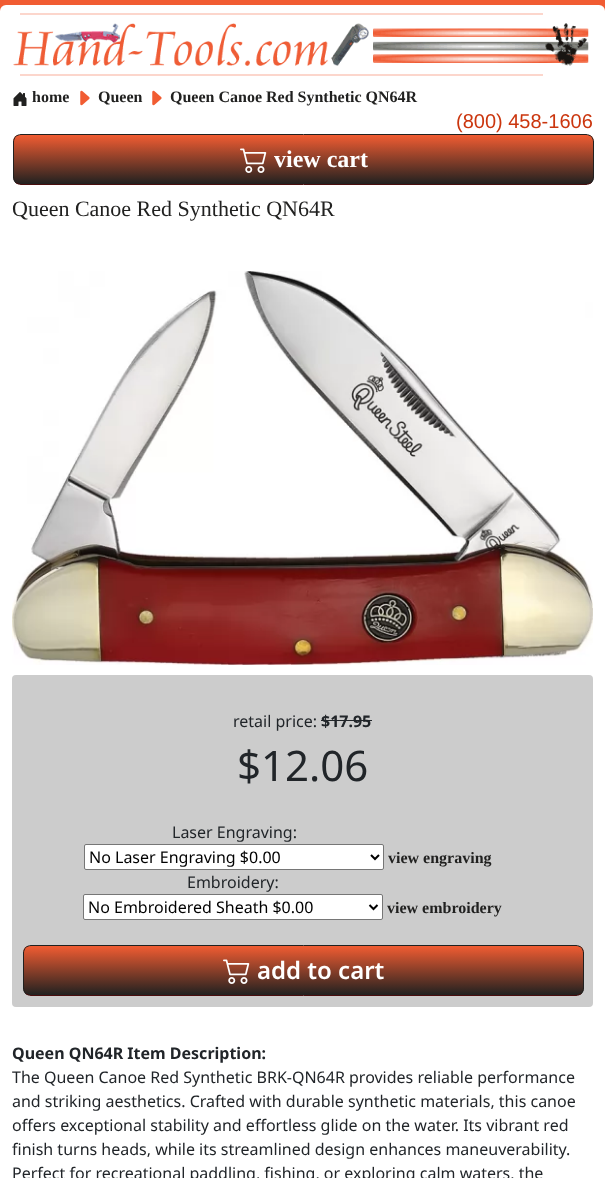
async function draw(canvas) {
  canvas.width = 605
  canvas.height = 1178
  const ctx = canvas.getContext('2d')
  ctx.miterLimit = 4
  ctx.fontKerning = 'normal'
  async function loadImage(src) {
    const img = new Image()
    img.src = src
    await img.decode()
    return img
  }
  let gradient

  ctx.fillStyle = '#f15c32'
  ctx.fillRect(0, 0, 605, 1178)
  ctx.fillStyle = '#fff'
  ctx.beginPath()
  ctx.roundRect(0, 5, 605, 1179, 6)
  ctx.fill()
  ctx.fillStyle = '#fcd6cc'
  ctx.fillRect(20, 13, 523, 2)
  ctx.drawImage(await loadImage('image0.png'), 13, 23, 576, 43)
  ctx.fillRect(20, 74, 523, 2)
  ctx.drawImage(await loadImage('image1.png'), 13, 92, 14, 14)
  ctx.font = 'bold 16px Liberation Serif'
  ctx.fillStyle = '#212120'
  ctx.fillText('home', 32, 102)
  ctx.drawImage(await loadImage('image2.png'), 80, 90, 10, 16)
  ctx.fillText('Queen', 98, 102)
  ctx.drawImage(await loadImage('image2.png'), 152, 90, 10, 16)
  ctx.fillText('Queen Canoe Red Synthetic QN64R', 170, 102)
  ctx.font = '20px Liberation Sans'
  ctx.fillStyle = '#cb360e'
  ctx.fillText('(800) 458-1606', 456, 128)
  ctx.save()
  ctx.beginPath()
  ctx.roundRect(13, 134, 581, 51, 8)
  ctx.clip()
  gradient = ctx.createLinearGradient(304, 135, 304, 184)
  gradient.addColorStop(0, '#f15c32')
  gradient.addColorStop(1, '#212120')
  ctx.fillStyle = gradient
  ctx.fillRect(13, 135, 581, 49)
  ctx.restore()
  ctx.beginPath()
  ctx.moveTo(591.5, 182.5)
  ctx.bezierCurveTo(590, 183.5, 588, 184.5, 586, 184.5)
  ctx.lineTo(21, 184.5)
  ctx.bezierCurveTo(19, 184.5, 17, 183.5, 15.5, 182.5)
  ctx.strokeStyle = '#490d0d'
  ctx.stroke()
  ctx.beginPath()
  ctx.moveTo(15.5, 182.5)
  ctx.bezierCurveTo(14.5, 181, 13.5, 179, 13.5, 177)
  ctx.lineTo(13.5, 142)
  ctx.bezierCurveTo(13.5, 140, 14.5, 138, 15.5, 136.5)
  ctx.bezierCurveTo(17, 135.5, 19, 134.5, 21, 134.5)
  ctx.lineTo(586, 134.5)
  ctx.bezierCurveTo(588, 134.5, 590, 135.5, 591.5, 136.5)
  ctx.bezierCurveTo(592.5, 138, 593.5, 140, 593.5, 142)
  ctx.lineTo(593.5, 177)
  ctx.bezierCurveTo(593.5, 179, 592.5, 181, 591.5, 182.5)
  ctx.strokeStyle = '#212120'
  ctx.stroke()
  ctx.drawImage(await loadImage('image3.png'), 240, 148, 27, 25)
  ctx.font = 'bold 24px Liberation Serif'
  ctx.fillStyle = '#fff'
  ctx.fillText('view cart', 274, 167)
  ctx.font = '22px Liberation Serif'
  ctx.fillStyle = '#212120'
  ctx.fillText('Queen Canoe Red Synthetic QN64R', 12, 216)
  ctx.drawImage(await loadImage('image4.png'), 12, 271, 581, 394)
  ctx.fillStyle = '#ccc'
  ctx.beginPath()
  ctx.roundRect(12, 675, 581, 332, 4)
  ctx.fill()
  ctx.font = '16px Noto Sans'
  ctx.fillStyle = '#212529'
  ctx.fillText('retail price:', 233, 727)
  ctx.font = 'bold 16px Noto Sans'
  ctx.fillText('$17.95', 321, 727)
  ctx.fillRect(321, 720, 51, 1)
  ctx.font = '42px Noto Sans'
  ctx.fillText('$12.06', 237, 781)
  ctx.font = '16px Noto Sans'
  ctx.fillText('Laser Engraving:', 172, 838)
  ctx.fillStyle = '#fff'
  ctx.beginPath()
  ctx.roundRect(84.5, 844.5, 299, 25, 1.5)
  ctx.fill()
  ctx.strokeStyle = '#767676'
  ctx.stroke()
  ctx.beginPath()
  ctx.moveTo(371, 855)
  ctx.lineTo(375, 859)
  ctx.lineTo(379, 855)
  ctx.strokeStyle = '#000'
  ctx.lineWidth = 2
  ctx.stroke()
  ctx.fillStyle = '#000'
  ctx.fillText('No Laser Engraving $0.00', 89, 863)
  ctx.font = 'bold 16px Liberation Serif'
  ctx.fillStyle = '#212120'
  ctx.fillText('view engraving', 388, 863)
  ctx.font = '16px Noto Sans'
  ctx.fillStyle = '#212529'
  ctx.fillText('Embroidery:', 187, 888)
  ctx.fillStyle = '#fff'
  ctx.beginPath()
  ctx.roundRect(83.5, 894.5, 299, 25, 1.5)
  ctx.fill()
  ctx.strokeStyle = '#767676'
  ctx.lineWidth = 1
  ctx.stroke()
  ctx.beginPath()
  ctx.moveTo(369.5, 905)
  ctx.lineTo(373.5, 909)
  ctx.lineTo(377.5, 905)
  ctx.strokeStyle = '#000'
  ctx.lineWidth = 2
  ctx.stroke()
  ctx.fillStyle = '#000'
  ctx.fillText('No Embroidered Sheath $0.00', 88, 913)
  ctx.font = 'bold 16px Liberation Serif'
  ctx.fillStyle = '#212120'
  ctx.fillText('view embroidery', 387, 913)
  ctx.save()
  ctx.beginPath()
  ctx.roundRect(23, 945, 561, 51, 8)
  ctx.clip()
  gradient = ctx.createLinearGradient(304, 946, 304, 995)
  gradient.addColorStop(0, '#f15c32')
  gradient.addColorStop(1, '#212120')
  ctx.fillStyle = gradient
  ctx.fillRect(23, 946, 561, 49)
  ctx.restore()
  ctx.beginPath()
  ctx.moveTo(581.5, 993.5)
  ctx.bezierCurveTo(580, 994.5, 578, 995.5, 576, 995.5)
  ctx.lineTo(31, 995.5)
  ctx.bezierCurveTo(29, 995.5, 27, 994.5, 25.5, 993.5)
  ctx.strokeStyle = '#490d0d'
  ctx.lineWidth = 1
  ctx.stroke()
  ctx.beginPath()
  ctx.moveTo(25.5, 993.5)
  ctx.bezierCurveTo(24.5, 992, 23.5, 990, 23.5, 988)
  ctx.lineTo(23.5, 953)
  ctx.bezierCurveTo(23.5, 951, 24.5, 949, 25.5, 947.5)
  ctx.bezierCurveTo(27, 946.5, 29, 945.5, 31, 945.5)
  ctx.lineTo(576, 945.5)
  ctx.bezierCurveTo(578, 945.5, 580, 946.5, 581.5, 947.5)
  ctx.bezierCurveTo(582.5, 949, 583.5, 951, 583.5, 953)
  ctx.lineTo(583.5, 988)
  ctx.bezierCurveTo(583.5, 990, 582.5, 992, 581.5, 993.5)
  ctx.strokeStyle = '#212120'
  ctx.stroke()
  ctx.drawImage(await loadImage('image3.png'), 223, 959, 27, 25)
  ctx.font = '600 24px Noto Sans'
  ctx.fillStyle = '#fff'
  ctx.fillText('add to cart', 257, 979)
  ctx.font = 'bold 16px Noto Sans'
  ctx.fillStyle = '#212529'
  ctx.fillText('Queen QN64R Item Description:', 12, 1059)
  ctx.font = '16px Noto Sans'
  ctx.fillText('The Queen Canoe Red Synthetic BRK-QN64R provides reliable performance', 12, 1083)
  ctx.fillText('and striking aesthetics. Crafted with durable synthetic materials, this canoe', 12, 1107)
  ctx.fillText('offers exceptional stability and effortless glide on the water. Its vibrant red', 12, 1131)
  ctx.fillText('finish turns heads, while its streamlined design enhances maneuverability.', 12, 1155)
  ctx.fillText('Perfect for recreational paddling, fishing, or exploring calm waters, the', 12, 1179)
}

draw(document.querySelector('canvas'))
